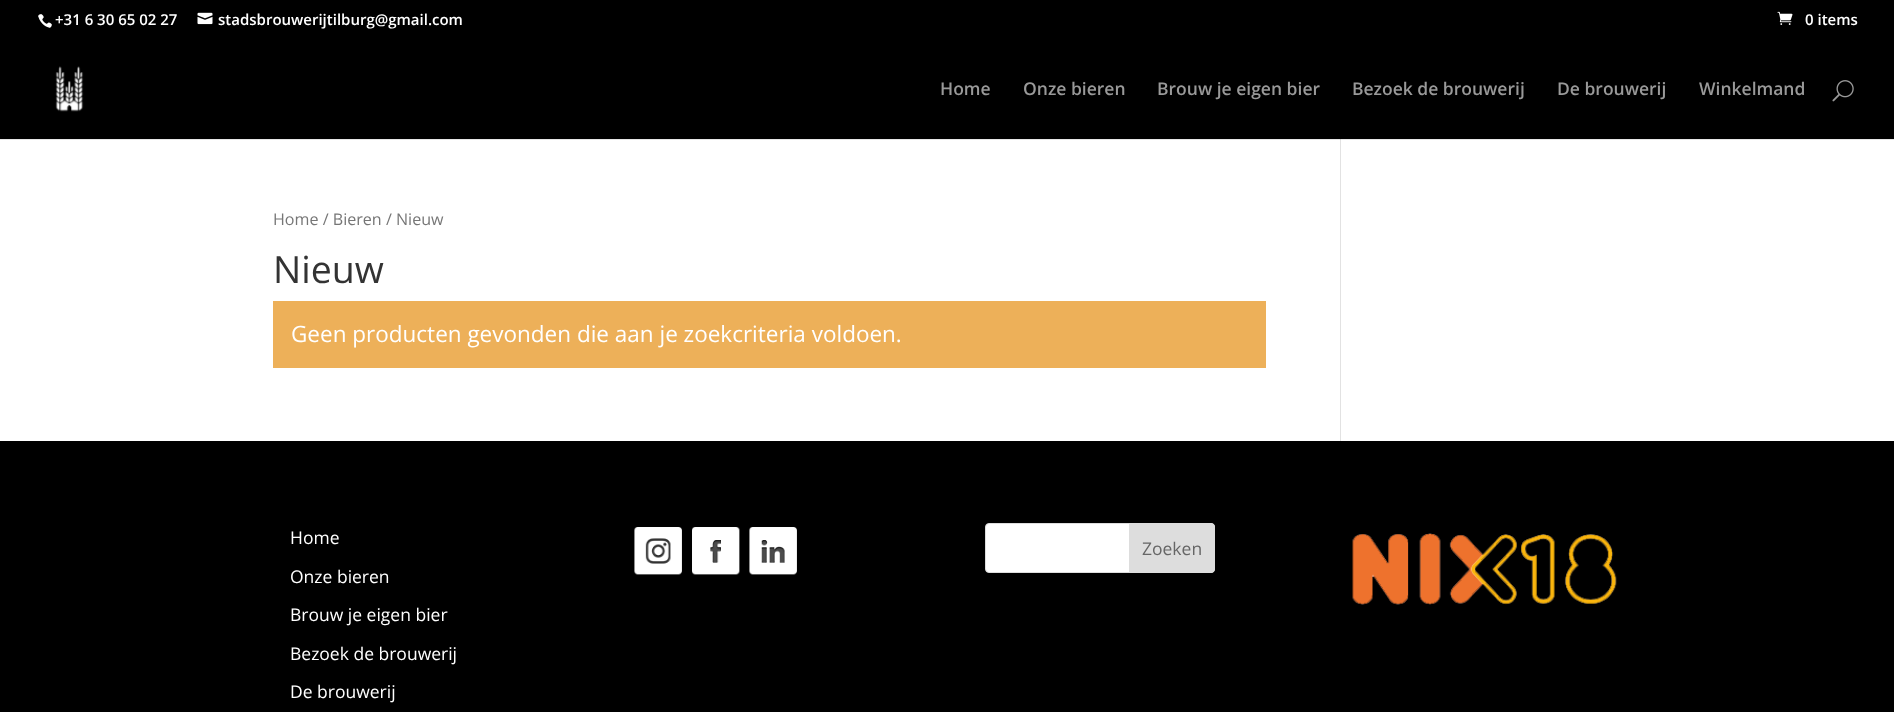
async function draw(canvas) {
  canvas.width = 1894
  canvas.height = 712
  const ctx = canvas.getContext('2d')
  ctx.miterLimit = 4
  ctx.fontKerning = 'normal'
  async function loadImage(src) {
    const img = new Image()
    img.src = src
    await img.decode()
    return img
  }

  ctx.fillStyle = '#fff'
  ctx.fillRect(0, 0, 1894, 712)
  ctx.fillStyle = '#e6e6e6'
  ctx.fillRect(0, 139, 1894, 1)
  ctx.fillStyle = '#e2e2e2'
  ctx.fillRect(1340, 133, 1, 308)
  ctx.fillStyle = '#000'
  ctx.fillRect(0, 0, 1894, 139)
  ctx.drawImage(await loadImage('image0.png'), 38, 14, 14, 14)
  ctx.font = '600 15px Open Sans'
  ctx.fillStyle = '#fff'
  ctx.fillText('+31 6 30 65 02 27', 55, 25)
  ctx.drawImage(await loadImage('image1.png'), 197, 12, 16, 13)
  ctx.fillText('stadsbrouwerijtilburg@gmail.com', 218, 25)
  ctx.drawImage(await loadImage('image2.png'), 1777, 11, 16, 14)
  ctx.fillText('0 items', 1805, 25)
  ctx.drawImage(await loadImage('image3.png'), 55, 66, 29, 46)
  ctx.font = '600 17.5px Open Sans'
  ctx.fillStyle = '#999'
  ctx.fillText('Home', 940, 95)
  ctx.fillText('Onze bieren', 1023, 95)
  ctx.fillText('Brouw je eigen bier', 1157, 95)
  ctx.fillText('Bezoek de brouwerij', 1352, 95)
  ctx.fillText('De brouwerij', 1557, 95)
  ctx.fillText('Winkelmand', 1699, 95)
  ctx.drawImage(await loadImage('image4.png'), 1832, 80, 22, 22)
  ctx.font = '16.1px Open Sans'
  ctx.fillStyle = '#767676'
  ctx.fillText('Home / Bieren / Nieuw', 273, 225)
  ctx.font = '37.5px Open Sans'
  ctx.fillStyle = '#333'
  ctx.fillText('Nieuw', 273, 283)
  ctx.fillStyle = '#edb059'
  ctx.fillRect(273, 301, 993, 67)
  ctx.font = '22.5px Open Sans'
  ctx.fillStyle = '#fff'
  ctx.fillText('Geen producten gevonden die aan je zoekcriteria voldoen.', 291, 342)
  ctx.fillStyle = '#cbcbcb'
  ctx.fillRect(1340, 139, 1, 1)
  ctx.fillStyle = '#000'
  ctx.fillRect(0, 441, 1894, 271)
  ctx.font = '17.5px Open Sans'
  ctx.fillStyle = '#fff'
  ctx.fillText('Home', 290, 544)
  ctx.fillText('Onze bieren', 290, 583)
  ctx.fillText('Brouw je eigen bier', 290, 621)
  ctx.fillText('Bezoek de brouwerij', 290, 660)
  ctx.fillText('De brouwerij', 290, 698)
  ctx.drawImage(await loadImage('image5.png'), 634, 527, 48, 48)
  ctx.drawImage(await loadImage('image6.png'), 692, 527, 48, 48)
  ctx.drawImage(await loadImage('image7.png'), 749, 527, 48, 48)
  ctx.beginPath()
  ctx.roundRect(985.5, 523.5, 229, 49, 3.5)
  ctx.fill()
  ctx.strokeStyle = '#ddd'
  ctx.stroke()
  ctx.fillStyle = '#ddd'
  ctx.beginPath()
  ctx.roundRect(1129.5, 523.5, 85, 49, [0, 3.5, 3.5, 0])
  ctx.fill()
  ctx.stroke()
  ctx.fillStyle = '#666'
  ctx.fillText('Zoeken', 1142, 555)
  ctx.drawImage(await loadImage('image8.png'), 1352, 533, 265, 72)
}

draw(document.querySelector('canvas'))
